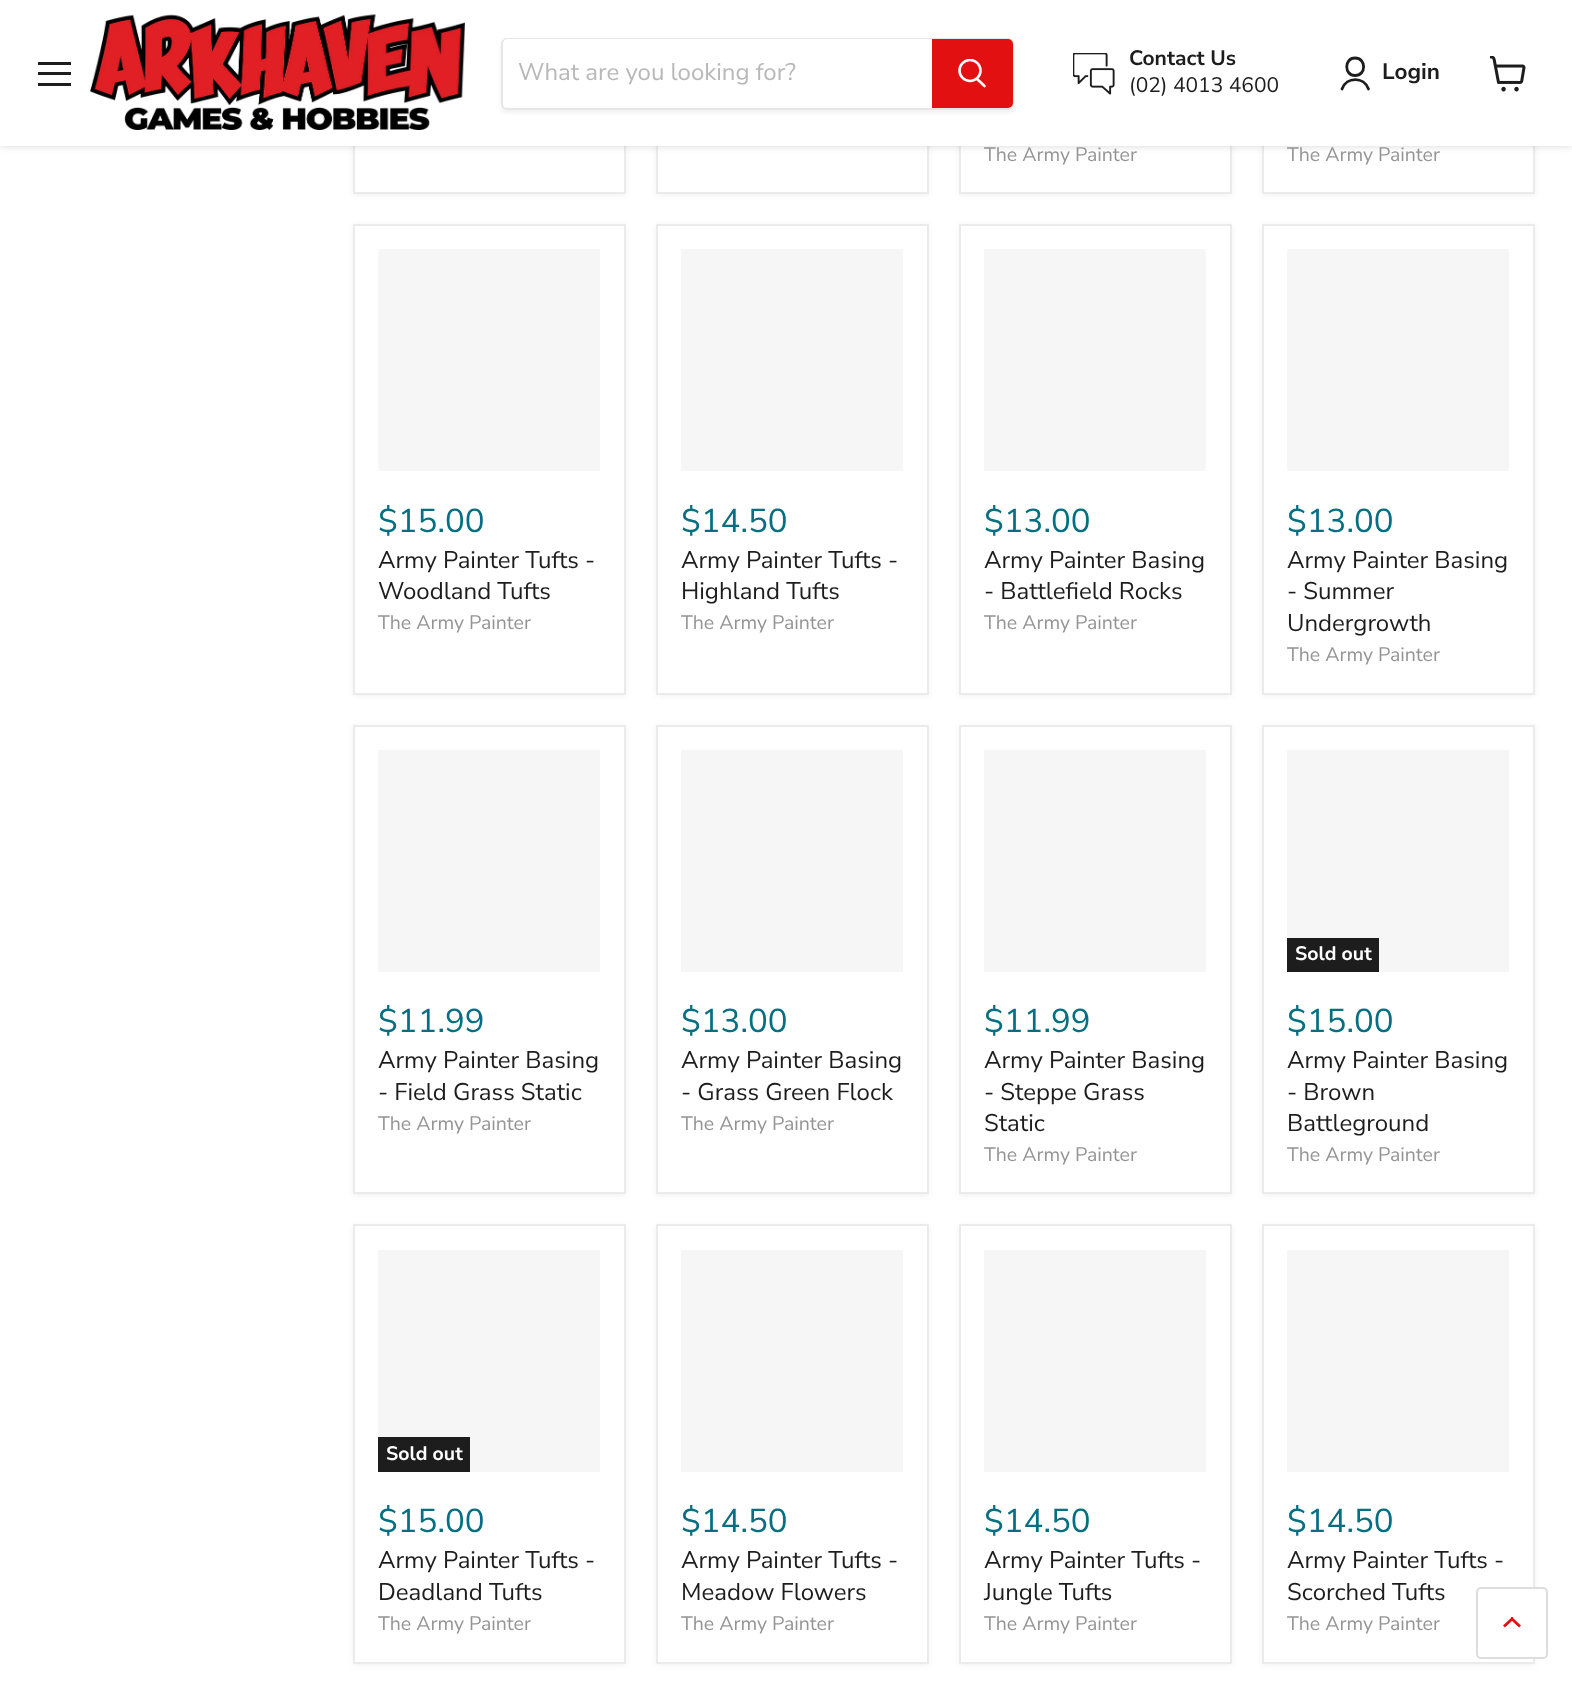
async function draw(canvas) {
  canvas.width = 1572
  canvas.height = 1682
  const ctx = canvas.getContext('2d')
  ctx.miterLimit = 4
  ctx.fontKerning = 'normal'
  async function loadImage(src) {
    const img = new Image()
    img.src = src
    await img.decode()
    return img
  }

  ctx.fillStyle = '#fff'
  ctx.fillRect(0, 0, 1572, 1682)
  ctx.fillStyle = '#8080801c'
  ctx.filter = 'blur(3px)'
  ctx.beginPath()
  ctx.rect(353, -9, 273, 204)
  ctx.fill()
  ctx.filter = 'none'
  ctx.fillStyle = '#fff'
  ctx.fillRect(355, 146, 269, 46)
  ctx.strokeStyle = '#ebebeb'
  ctx.lineWidth = 2
  ctx.strokeRect(354, -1, 271, 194)
  ctx.fillStyle = '#8080801c'
  ctx.filter = 'blur(3px)'
  ctx.beginPath()
  ctx.rect(656, -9, 273, 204)
  ctx.fill()
  ctx.filter = 'none'
  ctx.fillStyle = '#fff'
  ctx.fillRect(658, 146, 269, 46)
  ctx.strokeRect(657, -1, 271, 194)
  ctx.fillStyle = '#8080801c'
  ctx.filter = 'blur(3px)'
  ctx.beginPath()
  ctx.rect(959, -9, 273, 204)
  ctx.fill()
  ctx.filter = 'none'
  ctx.fillStyle = '#fff'
  ctx.fillRect(961, 146, 269, 46)
  ctx.strokeRect(960, -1, 271, 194)
  ctx.fillStyle = '#8080801c'
  ctx.filter = 'blur(3px)'
  ctx.beginPath()
  ctx.rect(1262, -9, 273, 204)
  ctx.fill()
  ctx.filter = 'none'
  ctx.fillStyle = '#fff'
  ctx.fillRect(1264, 146, 269, 46)
  ctx.strokeRect(1263, -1, 271, 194)
  ctx.fillStyle = '#80808040'
  ctx.filter = 'blur(3px)'
  ctx.beginPath()
  ctx.rect(0, 2, 1572, 145)
  ctx.fill()
  ctx.filter = 'none'
  ctx.fillStyle = '#fff'
  ctx.fillRect(0, 0, 1572, 146)
  ctx.fillStyle = '#1d1d1d'
  ctx.fillRect(38, 62, 33, 3)
  ctx.fillRect(38, 72, 33, 3)
  ctx.fillRect(38, 83, 33, 3)
  ctx.drawImage(await loadImage('image0.png'), 90, 14, 375, 116)
  ctx.save()
  ctx.beginPath()
  ctx.moveTo(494, 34)
  ctx.lineTo(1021, 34)
  ctx.lineTo(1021, 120)
  ctx.lineTo(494, 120)
  ctx.closePath()
  ctx.moveTo(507, 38)
  ctx.lineTo(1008, 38)
  ctx.bezierCurveTo(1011.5, 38, 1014, 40.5, 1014, 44)
  ctx.lineTo(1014, 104)
  ctx.bezierCurveTo(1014, 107.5, 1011.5, 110, 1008, 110)
  ctx.lineTo(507, 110)
  ctx.bezierCurveTo(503.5, 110, 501, 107.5, 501, 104)
  ctx.lineTo(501, 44)
  ctx.bezierCurveTo(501, 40.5, 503.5, 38, 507, 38)
  ctx.closePath()
  ctx.clip('evenodd')
  ctx.fillStyle = '#8080801c'
  ctx.filter = 'blur(2px)'
  ctx.beginPath()
  ctx.roundRect(501, 41, 513, 72, 6)
  ctx.fill()
  ctx.filter = 'none'
  ctx.restore()
  ctx.beginPath()
  ctx.roundRect(502, 39, 511, 70, 5)
  ctx.strokeStyle = '#80808033'
  ctx.stroke()
  ctx.fillStyle = '#fff'
  ctx.beginPath()
  ctx.roundRect(503, 39, 429, 69, [5, 0, 0, 5])
  ctx.fill()
  ctx.font = '24px Nunito Sans'
  ctx.fillStyle = '#b8b8b8'
  ctx.fillText('What are you looking for?', 518, 80)
  ctx.fillStyle = '#e31012'
  ctx.beginPath()
  ctx.roundRect(933, 40, 79, 67, [0, 4, 4, 0])
  ctx.fill()
  ctx.strokeStyle = '#e31012'
  ctx.stroke()
  ctx.beginPath()
  ctx.moveTo(984.5, 86)
  ctx.lineTo(977, 79)
  ctx.strokeStyle = '#fff'
  ctx.lineWidth = 2.6
  ctx.lineCap = 'round'
  ctx.stroke()
  ctx.save()
  ctx.beginPath()
  ctx.rect(957, 59, 30, 31)
  ctx.clip()
  ctx.beginPath()
  ctx.arc(970, 70.5, 10.5, 0, 2 * Math.PI)
  ctx.stroke()
  ctx.restore()
  ctx.drawImage(await loadImage('image1.png'), 1073, 53, 42, 42)
  ctx.font = 'bold 21px Nunito Sans'
  ctx.fillStyle = '#1d1d1d'
  ctx.fillText('Contact Us', 1129, 65)
  ctx.font = '21px Nunito Sans'
  ctx.fillText('(02) 4013 4600', 1129, 92)
  ctx.beginPath()
  ctx.moveTo(1355, 75.5)
  ctx.bezierCurveTo(1366.5, 75.5, 1366.5, 58, 1355, 58)
  ctx.bezierCurveTo(1344, 58, 1344, 75.5, 1355, 75.5)
  ctx.closePath()
  ctx.moveTo(1368.5, 89)
  ctx.bezierCurveTo(1364, 76.5, 1346.5, 76.5, 1342, 89)
  ctx.strokeStyle = '#1d1d1d'
  ctx.lineWidth = 2.8
  ctx.lineJoin = 'round'
  ctx.stroke()
  ctx.font = 'bold 22.5px Nunito Sans'
  ctx.fillText('Login', 1382, 79)
  ctx.drawImage(await loadImage('image2.png'), 1490, 56, 36, 36)
  ctx.font = '19.5px Nunito Sans'
  ctx.fillStyle = '#949494'
  ctx.fillText('The Army Painter', 984, 161)
  ctx.fillText('The Army Painter', 1287, 161)
  ctx.fillStyle = '#8080801c'
  ctx.filter = 'blur(3px)'
  ctx.beginPath()
  ctx.rect(353, 225, 273, 471)
  ctx.fill()
  ctx.filter = 'none'
  ctx.fillStyle = '#fff'
  ctx.beginPath()
  ctx.rect(354, 225, 271, 469)
  ctx.fill()
  ctx.strokeStyle = '#ebebeb'
  ctx.lineWidth = 2
  ctx.lineJoin = 'miter'
  ctx.stroke()
  ctx.fillStyle = '#f6f6f6'
  ctx.fillRect(378, 249, 222, 222)
  ctx.font = '33px Nunito Sans'
  ctx.fillStyle = '#046e82'
  ctx.fillText('$15.00', 378, 532)
  ctx.font = '24px Nunito Sans'
  ctx.fillStyle = '#1d1d1d'
  ctx.fillText('Army Painter Tufts -', 378, 568)
  ctx.fillText('Woodland Tufts', 378, 599)
  ctx.font = '19.5px Nunito Sans'
  ctx.fillStyle = '#949494'
  ctx.fillText('The Army Painter', 378, 629)
  ctx.fillStyle = '#8080801c'
  ctx.filter = 'blur(3px)'
  ctx.beginPath()
  ctx.rect(656, 225, 273, 471)
  ctx.fill()
  ctx.filter = 'none'
  ctx.fillStyle = '#fff'
  ctx.beginPath()
  ctx.rect(657, 225, 271, 469)
  ctx.fill()
  ctx.stroke()
  ctx.fillStyle = '#f6f6f6'
  ctx.fillRect(681, 249, 222, 222)
  ctx.font = '33px Nunito Sans'
  ctx.fillStyle = '#046e82'
  ctx.fillText('$14.50', 681, 532)
  ctx.font = '24px Nunito Sans'
  ctx.fillStyle = '#1d1d1d'
  ctx.fillText('Army Painter Tufts -', 681, 568)
  ctx.fillText('Highland Tufts', 681, 599)
  ctx.font = '19.5px Nunito Sans'
  ctx.fillStyle = '#949494'
  ctx.fillText('The Army Painter', 681, 629)
  ctx.fillStyle = '#8080801c'
  ctx.filter = 'blur(3px)'
  ctx.beginPath()
  ctx.rect(959, 225, 273, 471)
  ctx.fill()
  ctx.filter = 'none'
  ctx.fillStyle = '#fff'
  ctx.beginPath()
  ctx.rect(960, 225, 271, 469)
  ctx.fill()
  ctx.stroke()
  ctx.fillStyle = '#f6f6f6'
  ctx.fillRect(984, 249, 222, 222)
  ctx.font = '33px Nunito Sans'
  ctx.fillStyle = '#046e82'
  ctx.fillText('$13.00', 984, 532)
  ctx.font = '24px Nunito Sans'
  ctx.fillStyle = '#1d1d1d'
  ctx.fillText('Army Painter Basing', 984, 568)
  ctx.fillText('- Battlefield Rocks', 984, 599)
  ctx.font = '19.5px Nunito Sans'
  ctx.fillStyle = '#949494'
  ctx.fillText('The Army Painter', 984, 629)
  ctx.fillStyle = '#8080801c'
  ctx.filter = 'blur(3px)'
  ctx.beginPath()
  ctx.rect(1262, 225, 273, 471)
  ctx.fill()
  ctx.filter = 'none'
  ctx.fillStyle = '#fff'
  ctx.beginPath()
  ctx.rect(1263, 225, 271, 469)
  ctx.fill()
  ctx.stroke()
  ctx.fillStyle = '#f6f6f6'
  ctx.fillRect(1287, 249, 222, 222)
  ctx.font = '33px Nunito Sans'
  ctx.fillStyle = '#046e82'
  ctx.fillText('$13.00', 1287, 532)
  ctx.font = '24px Nunito Sans'
  ctx.fillStyle = '#1d1d1d'
  ctx.fillText('Army Painter Basing', 1287, 568)
  ctx.fillText('- Summer', 1287, 599)
  ctx.fillText('Undergrowth', 1287, 631)
  ctx.font = '19.5px Nunito Sans'
  ctx.fillStyle = '#949494'
  ctx.fillText('The Army Painter', 1287, 661)
  ctx.fillStyle = '#8080801c'
  ctx.filter = 'blur(3px)'
  ctx.beginPath()
  ctx.rect(353, 726, 273, 470)
  ctx.fill()
  ctx.filter = 'none'
  ctx.fillStyle = '#fff'
  ctx.beginPath()
  ctx.rect(354, 726, 271, 467)
  ctx.fill()
  ctx.stroke()
  ctx.fillStyle = '#f6f6f6'
  ctx.fillRect(378, 750, 222, 222)
  ctx.font = '33px Nunito Sans'
  ctx.fillStyle = '#046e82'
  ctx.fillText('$11.99', 378, 1032)
  ctx.font = '24px Nunito Sans'
  ctx.fillStyle = '#1d1d1d'
  ctx.fillText('Army Painter Basing', 378, 1068)
  ctx.fillText('- Field Grass Static', 378, 1100)
  ctx.font = '19.5px Nunito Sans'
  ctx.fillStyle = '#949494'
  ctx.fillText('The Army Painter', 378, 1130)
  ctx.fillStyle = '#8080801c'
  ctx.filter = 'blur(3px)'
  ctx.beginPath()
  ctx.rect(656, 726, 273, 470)
  ctx.fill()
  ctx.filter = 'none'
  ctx.fillStyle = '#fff'
  ctx.beginPath()
  ctx.rect(657, 726, 271, 467)
  ctx.fill()
  ctx.stroke()
  ctx.fillStyle = '#f6f6f6'
  ctx.fillRect(681, 750, 222, 222)
  ctx.font = '33px Nunito Sans'
  ctx.fillStyle = '#046e82'
  ctx.fillText('$13.00', 681, 1032)
  ctx.font = '24px Nunito Sans'
  ctx.fillStyle = '#1d1d1d'
  ctx.fillText('Army Painter Basing', 681, 1068)
  ctx.fillText('- Grass Green Flock', 681, 1100)
  ctx.font = '19.5px Nunito Sans'
  ctx.fillStyle = '#949494'
  ctx.fillText('The Army Painter', 681, 1130)
  ctx.fillStyle = '#8080801c'
  ctx.filter = 'blur(3px)'
  ctx.beginPath()
  ctx.rect(959, 726, 273, 470)
  ctx.fill()
  ctx.filter = 'none'
  ctx.fillStyle = '#fff'
  ctx.beginPath()
  ctx.rect(960, 726, 271, 467)
  ctx.fill()
  ctx.stroke()
  ctx.fillStyle = '#f6f6f6'
  ctx.fillRect(984, 750, 222, 222)
  ctx.font = '33px Nunito Sans'
  ctx.fillStyle = '#046e82'
  ctx.fillText('$11.99', 984, 1032)
  ctx.font = '24px Nunito Sans'
  ctx.fillStyle = '#1d1d1d'
  ctx.fillText('Army Painter Basing', 984, 1068)
  ctx.fillText('- Steppe Grass', 984, 1100)
  ctx.fillText('Static', 984, 1131)
  ctx.font = '19.5px Nunito Sans'
  ctx.fillStyle = '#949494'
  ctx.fillText('The Army Painter', 984, 1161)
  ctx.fillStyle = '#8080801c'
  ctx.filter = 'blur(3px)'
  ctx.beginPath()
  ctx.rect(1262, 726, 273, 470)
  ctx.fill()
  ctx.filter = 'none'
  ctx.fillStyle = '#fff'
  ctx.beginPath()
  ctx.rect(1263, 726, 271, 467)
  ctx.fill()
  ctx.stroke()
  ctx.fillStyle = '#f6f6f6'
  ctx.fillRect(1287, 750, 222, 222)
  ctx.fillStyle = '#1d1d1d'
  ctx.fillRect(1287, 938, 92, 34)
  ctx.font = 'bold 19.5px Nunito Sans'
  ctx.fillStyle = '#fff'
  ctx.fillText('Sold out', 1295, 960)
  ctx.font = '33px Nunito Sans'
  ctx.fillStyle = '#046e82'
  ctx.fillText('$15.00', 1287, 1032)
  ctx.font = '24px Nunito Sans'
  ctx.fillStyle = '#1d1d1d'
  ctx.fillText('Army Painter Basing', 1287, 1068)
  ctx.fillText('- Brown', 1287, 1100)
  ctx.fillText('Battleground', 1287, 1131)
  ctx.font = '19.5px Nunito Sans'
  ctx.fillStyle = '#949494'
  ctx.fillText('The Army Painter', 1287, 1161)
  ctx.fillStyle = '#8080801c'
  ctx.filter = 'blur(3px)'
  ctx.beginPath()
  ctx.rect(353, 1226, 273, 439)
  ctx.fill()
  ctx.filter = 'none'
  ctx.fillStyle = '#fff'
  ctx.beginPath()
  ctx.rect(354, 1225, 271, 438)
  ctx.fill()
  ctx.stroke()
  ctx.fillStyle = '#f6f6f6'
  ctx.fillRect(378, 1250, 222, 222)
  ctx.fillStyle = '#1d1d1d'
  ctx.fillRect(378, 1437, 92, 35)
  ctx.font = 'bold 19.5px Nunito Sans'
  ctx.fillStyle = '#fff'
  ctx.fillText('Sold out', 386, 1460)
  ctx.font = '33px Nunito Sans'
  ctx.fillStyle = '#046e82'
  ctx.fillText('$15.00', 378, 1532)
  ctx.font = '24px Nunito Sans'
  ctx.fillStyle = '#1d1d1d'
  ctx.fillText('Army Painter Tufts -', 378, 1568)
  ctx.fillText('Deadland Tufts', 378, 1600)
  ctx.font = '19.5px Nunito Sans'
  ctx.fillStyle = '#949494'
  ctx.fillText('The Army Painter', 378, 1630)
  ctx.fillStyle = '#8080801c'
  ctx.filter = 'blur(3px)'
  ctx.beginPath()
  ctx.rect(656, 1226, 273, 439)
  ctx.fill()
  ctx.filter = 'none'
  ctx.fillStyle = '#fff'
  ctx.beginPath()
  ctx.rect(657, 1225, 271, 438)
  ctx.fill()
  ctx.stroke()
  ctx.fillStyle = '#f6f6f6'
  ctx.fillRect(681, 1250, 222, 222)
  ctx.font = '33px Nunito Sans'
  ctx.fillStyle = '#046e82'
  ctx.fillText('$14.50', 681, 1532)
  ctx.font = '24px Nunito Sans'
  ctx.fillStyle = '#1d1d1d'
  ctx.fillText('Army Painter Tufts -', 681, 1568)
  ctx.fillText('Meadow Flowers', 681, 1600)
  ctx.font = '19.5px Nunito Sans'
  ctx.fillStyle = '#949494'
  ctx.fillText('The Army Painter', 681, 1630)
  ctx.fillStyle = '#8080801c'
  ctx.filter = 'blur(3px)'
  ctx.beginPath()
  ctx.rect(959, 1226, 273, 439)
  ctx.fill()
  ctx.filter = 'none'
  ctx.fillStyle = '#fff'
  ctx.beginPath()
  ctx.rect(960, 1225, 271, 438)
  ctx.fill()
  ctx.stroke()
  ctx.fillStyle = '#f6f6f6'
  ctx.fillRect(984, 1250, 222, 222)
  ctx.font = '33px Nunito Sans'
  ctx.fillStyle = '#046e82'
  ctx.fillText('$14.50', 984, 1532)
  ctx.font = '24px Nunito Sans'
  ctx.fillStyle = '#1d1d1d'
  ctx.fillText('Army Painter Tufts -', 984, 1568)
  ctx.fillText('Jungle Tufts', 984, 1600)
  ctx.font = '19.5px Nunito Sans'
  ctx.fillStyle = '#949494'
  ctx.fillText('The Army Painter', 984, 1630)
  ctx.fillStyle = '#8080801c'
  ctx.filter = 'blur(3px)'
  ctx.beginPath()
  ctx.rect(1262, 1226, 273, 439)
  ctx.fill()
  ctx.filter = 'none'
  ctx.fillStyle = '#fff'
  ctx.beginPath()
  ctx.rect(1263, 1225, 271, 438)
  ctx.fill()
  ctx.stroke()
  ctx.fillStyle = '#f6f6f6'
  ctx.fillRect(1287, 1250, 222, 222)
  ctx.font = '33px Nunito Sans'
  ctx.fillStyle = '#046e82'
  ctx.fillText('$14.50', 1287, 1532)
  ctx.font = '24px Nunito Sans'
  ctx.fillStyle = '#1d1d1d'
  ctx.fillText('Army Painter Tufts -', 1287, 1568)
  ctx.fillText('Scorched Tufts', 1287, 1600)
  ctx.font = '19.5px Nunito Sans'
  ctx.fillStyle = '#949494'
  ctx.fillText('The Army Painter', 1287, 1630)
  ctx.fillStyle = '#fff'
  ctx.beginPath()
  ctx.roundRect(1477, 1588, 70, 70, 4)
  ctx.fill()
  ctx.strokeStyle = '#ddd'
  ctx.stroke()
  ctx.beginPath()
  ctx.moveTo(1512, 1619)
  ctx.lineTo(1505, 1625.5)
  ctx.moveTo(1512, 1619)
  ctx.lineTo(1519, 1625.5)
  ctx.strokeStyle = '#e31012'
  ctx.lineWidth = 2.8
  ctx.lineCap = 'square'
  ctx.stroke()
}

draw(document.querySelector('canvas'))
